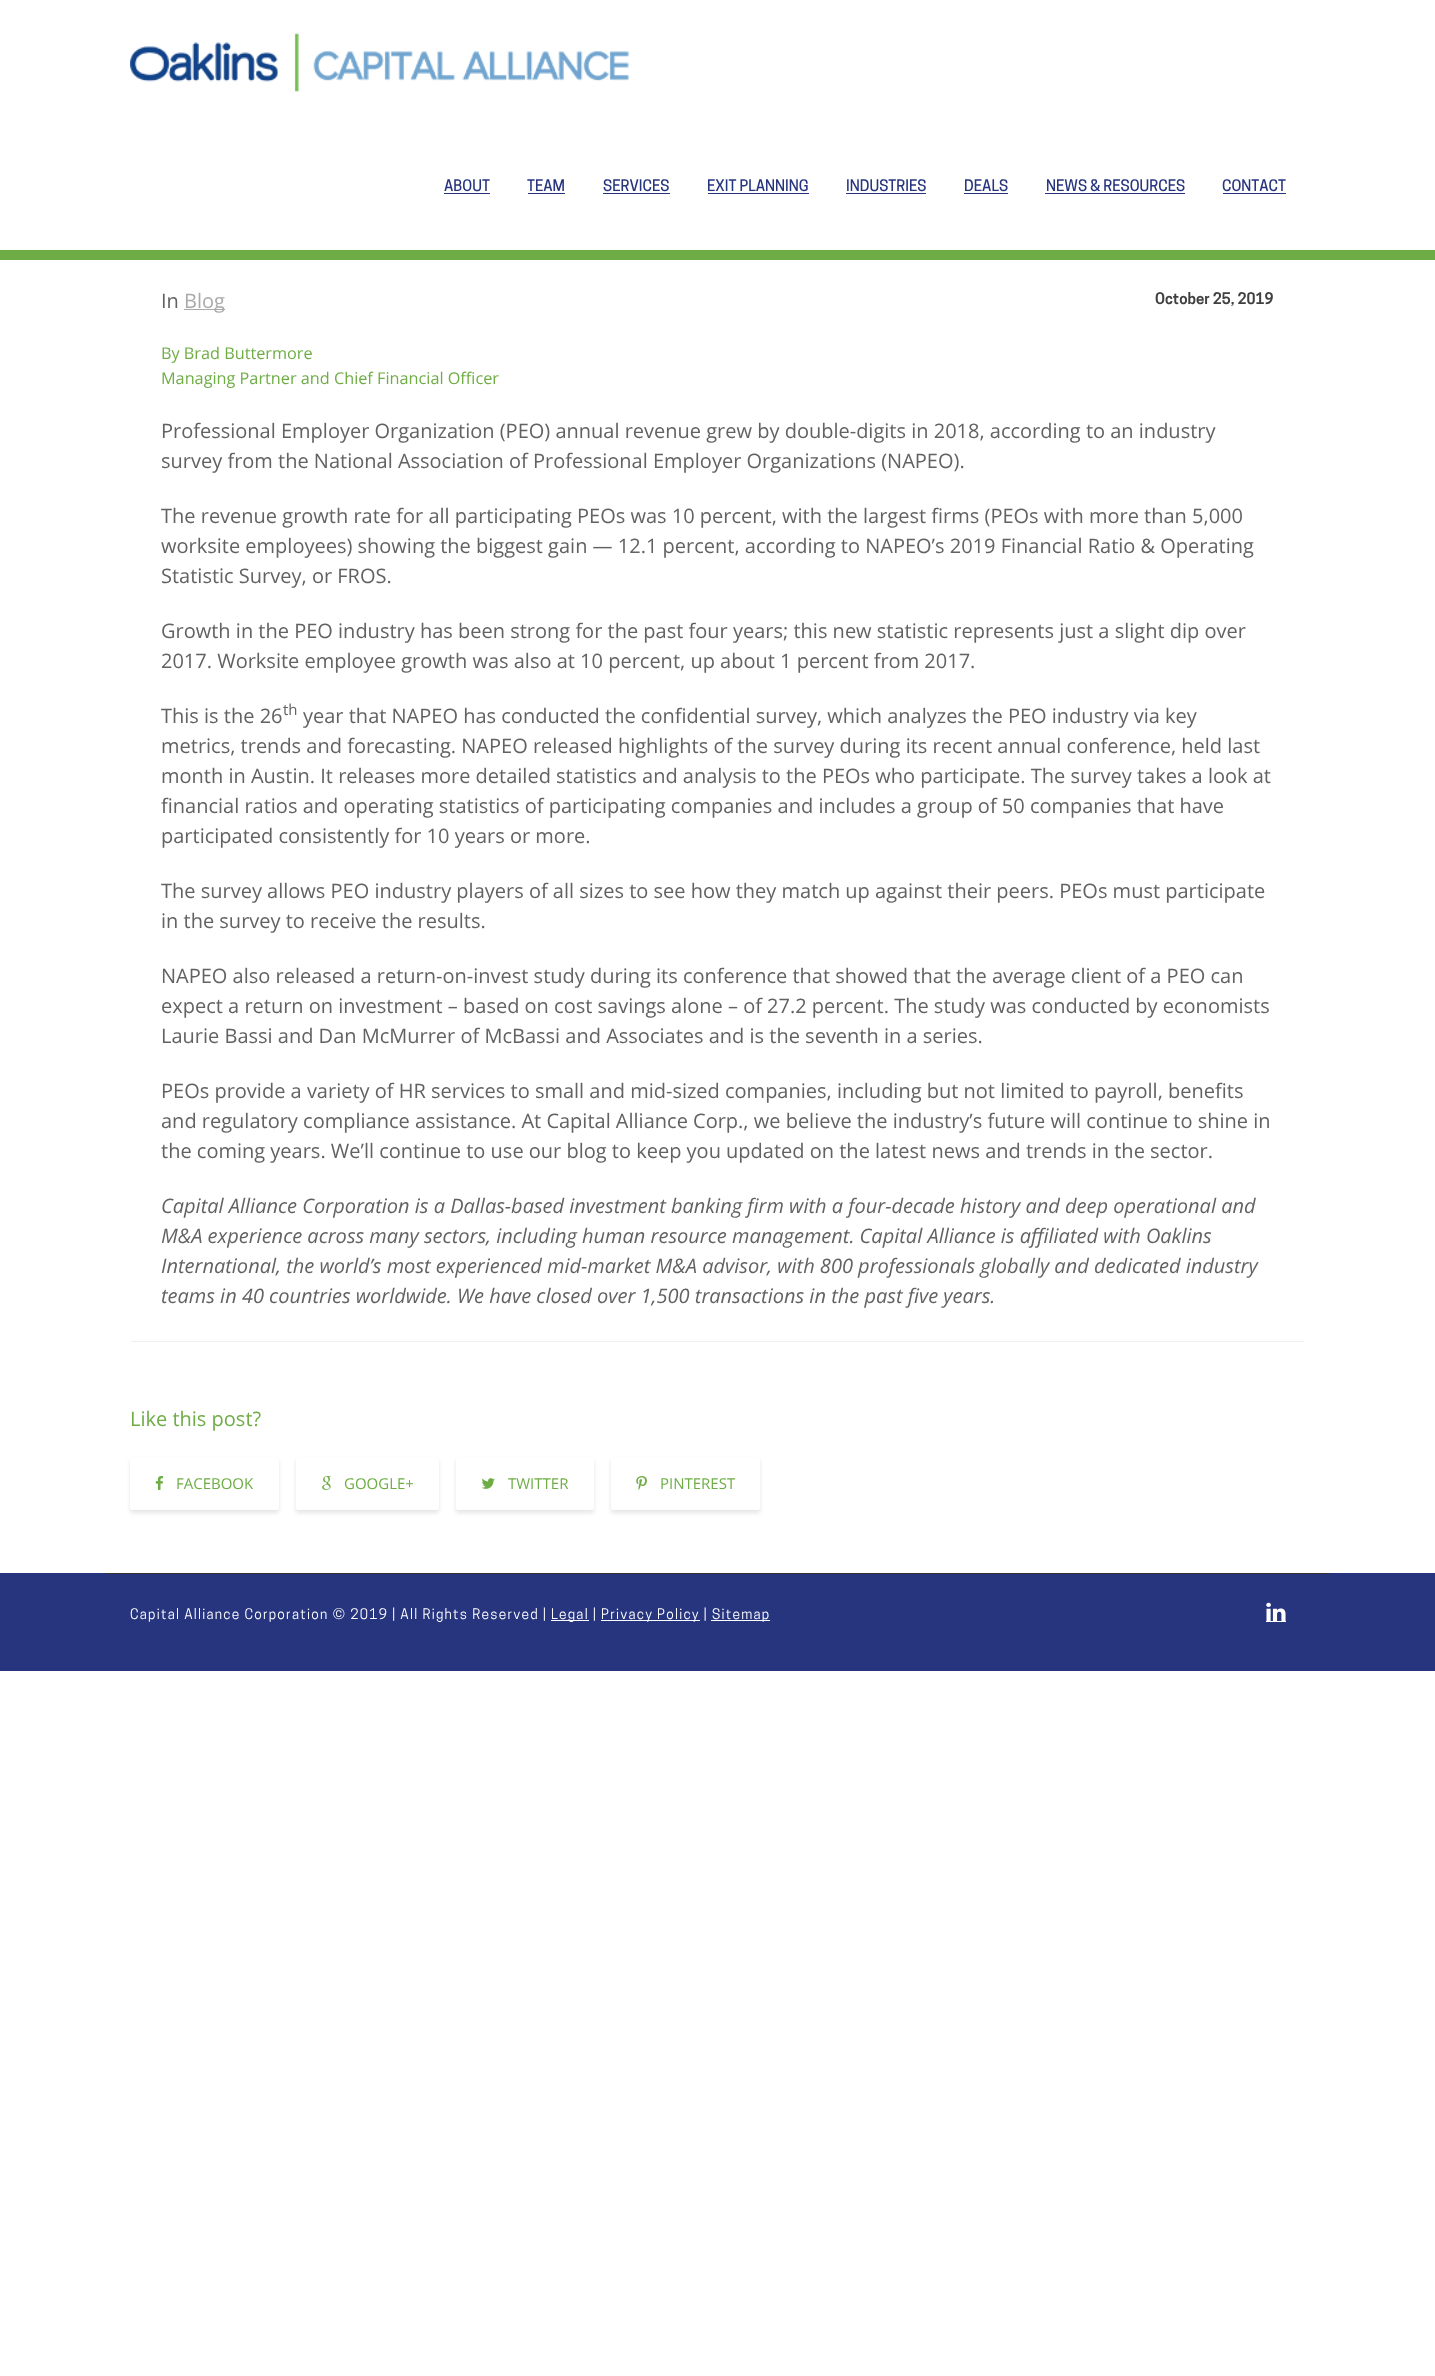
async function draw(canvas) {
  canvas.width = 1435
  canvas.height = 2376
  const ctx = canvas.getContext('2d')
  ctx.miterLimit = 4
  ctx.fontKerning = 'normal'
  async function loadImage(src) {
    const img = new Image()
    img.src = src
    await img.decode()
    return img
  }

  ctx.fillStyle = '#fff'
  ctx.fillRect(0, 0, 1435, 2376)
  ctx.fillStyle = '#6ead45'
  ctx.fillRect(0, 250, 1435, 10)
  ctx.drawImage(await loadImage('image0.png'), 130, 33, 499, 59)
  ctx.font = '500 15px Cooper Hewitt'
  ctx.fillStyle = '#27357e'
  ctx.fillText('ABOUT', 444, 191)
  ctx.fillRect(444, 193, 46, 1)
  ctx.fillText('TEAM', 527, 191)
  ctx.fillRect(528, 193, 37, 1)
  ctx.fillText('SERVICES', 603, 191)
  ctx.fillRect(603, 193, 67, 1)
  ctx.fillText('EXIT PLANNING', 707, 191)
  ctx.fillRect(708, 193, 101, 1)
  ctx.fillText('INDUSTRIES', 846, 191)
  ctx.fillRect(846, 193, 80, 1)
  ctx.fillText('DEALS', 964, 191)
  ctx.fillRect(964, 193, 44, 1)
  ctx.fillText('NEWS & RESOURCES', 1046, 191)
  ctx.fillRect(1045, 193, 140, 1)
  ctx.fillText('CONTACT', 1222, 191)
  ctx.fillRect(1223, 193, 63, 1)
  ctx.fillStyle = '#efefef'
  ctx.fillRect(131, 1341, 1173, 1)
  ctx.font = '20px Open Sans'
  ctx.fillStyle = '#626262'
  ctx.fillText('In', 161, 308)
  ctx.fillStyle = '#aaa'
  ctx.fillRect(184, 309, 41, 1)
  ctx.fillText('Blog', 184, 308)
  ctx.font = '600 15px Cooper Hewitt'
  ctx.fillStyle = '#404041'
  ctx.fillText('October 25, 2019', 1155, 304)
  ctx.font = '16.25px Open Sans'
  ctx.fillStyle = '#6ead45'
  ctx.fillText('By Brad Buttermore', 161, 359)
  ctx.fillText('Managing Partner and Chief Financial Officer', 161, 384)
  ctx.font = '20px Open Sans'
  ctx.fillStyle = '#626262'
  ctx.fillText('Professional Employer Organization (PEO) annual revenue grew by double-digits in 2018, according to an industry', 161, 438)
  ctx.fillText('survey from the National Association of Professional Employer Organizations (NAPEO).', 161, 468)
  ctx.fillText('The revenue growth rate for all participating PEOs was 10 percent, with the largest firms (PEOs with more than 5,000', 161, 523)
  ctx.fillText('worksite employees) showing the biggest gain — 12.1 percent, according to NAPEO’s 2019 Financial Ratio & Operating', 161, 553)
  ctx.fillText('Statistic Survey, or FROS.', 161, 583)
  ctx.fillText('Growth in the PEO industry has been strong for the past four years; this new statistic represents just a slight dip over', 161, 638)
  ctx.fillText('2017. Worksite employee growth was also at 10 percent, up about 1 percent from 2017.', 161, 668)
  ctx.fillText('This is the 26', 161, 723)
  ctx.font = '15px Open Sans'
  ctx.fillText('th', 283, 715)
  ctx.font = '20px Open Sans'
  ctx.fillText('year that NAPEO has conducted the confidential survey, which analyzes the PEO industry via key', 303, 723)
  ctx.fillText('metrics, trends and forecasting. NAPEO released highlights of the survey during its recent annual conference, held last', 161, 753)
  ctx.fillText('month in Austin. It releases more detailed statistics and analysis to the PEOs who participate. The survey takes a look at', 161, 783)
  ctx.fillText('financial ratios and operating statistics of participating companies and includes a group of 50 companies that have', 161, 813)
  ctx.fillText('participated consistently for 10 years or more.', 161, 843)
  ctx.fillText('The survey allows PEO industry players of all sizes to see how they match up against their peers. PEOs must participate', 161, 898)
  ctx.fillText('in the survey to receive the results.', 161, 928)
  ctx.fillText('NAPEO also released a return-on-invest study during its conference that showed that the average client of a PEO can', 161, 983)
  ctx.fillText('expect a return on investment – based on cost savings alone – of 27.2 percent. The study was conducted by economists', 161, 1013)
  ctx.fillText('Laurie Bassi and Dan McMurrer of McBassi and Associates and is the seventh in a series.', 161, 1043)
  ctx.fillText('PEOs provide a variety of HR services to small and mid-sized companies, including but not limited to payroll, benefits', 161, 1098)
  ctx.fillText('and regulatory compliance assistance. At Capital Alliance Corp., we believe the industry’s future will continue to shine in', 161, 1128)
  ctx.fillText('the coming years. We’ll continue to use our blog to keep you updated on the latest news and trends in the sector.', 161, 1158)
  ctx.font = 'italic 20px Open Sans'
  ctx.fillText('Capital Alliance Corporation is a Dallas-based investment banking firm with a four-decade history and deep operational and', 161, 1213)
  ctx.fillText('M&A experience across many sectors, including human resource management. Capital Alliance is affiliated with Oaklins', 161, 1243)
  ctx.fillText('International, the world’s most experienced mid-market M&A advisor, with 800 professionals globally and dedicated industry', 161, 1273)
  ctx.fillText('teams in 40 countries worldwide. We have closed over 1,500 transactions in the past five years.', 161, 1303)
  ctx.font = '20px Open Sans'
  ctx.fillStyle = '#6ead45'
  ctx.fillText('Like this post?', 130, 1426)
  ctx.fillStyle = '#0000001a'
  ctx.filter = 'blur(2px)'
  ctx.beginPath()
  ctx.roundRect(130, 1460, 149, 53, 2.5)
  ctx.fill()
  ctx.filter = 'none'
  ctx.fillStyle = '#fff'
  ctx.beginPath()
  ctx.roundRect(130, 1458, 149, 52, 2.5)
  ctx.fill()
  ctx.drawImage(await loadImage('image1.png'), 155, 1476, 9, 14)
  ctx.font = '15px Open Sans'
  ctx.fillStyle = '#6ead45'
  ctx.fillText('FACEBOOK', 176, 1489)
  ctx.fillStyle = '#0000001a'
  ctx.filter = 'blur(2px)'
  ctx.beginPath()
  ctx.roundRect(296, 1460, 143, 53, 2.5)
  ctx.fill()
  ctx.filter = 'none'
  ctx.fillStyle = '#fff'
  ctx.beginPath()
  ctx.roundRect(296, 1458, 143, 52, 2.5)
  ctx.fill()
  ctx.drawImage(await loadImage('image2.png'), 322, 1476, 9, 14)
  ctx.fillStyle = '#6ead45'
  ctx.fillText('GOOGLE+', 344, 1489)
  ctx.fillStyle = '#0000001a'
  ctx.filter = 'blur(2px)'
  ctx.beginPath()
  ctx.roundRect(456, 1460, 138, 53, 2.5)
  ctx.fill()
  ctx.filter = 'none'
  ctx.fillStyle = '#fff'
  ctx.beginPath()
  ctx.roundRect(456, 1458, 138, 52, 2.5)
  ctx.fill()
  ctx.drawImage(await loadImage('image3.png'), 481, 1478, 14, 11)
  ctx.fillStyle = '#6ead45'
  ctx.fillText('TWITTER', 508, 1489)
  ctx.fillStyle = '#0000001a'
  ctx.filter = 'blur(2px)'
  ctx.beginPath()
  ctx.roundRect(611, 1460, 149, 53, 2.5)
  ctx.fill()
  ctx.filter = 'none'
  ctx.fillStyle = '#fff'
  ctx.beginPath()
  ctx.roundRect(611, 1458, 149, 52, 2.5)
  ctx.fill()
  ctx.drawImage(await loadImage('image4.png'), 636, 1476, 11, 14)
  ctx.fillStyle = '#6ead45'
  ctx.fillText('PINTEREST', 660, 1489)
  ctx.fillStyle = '#27357e'
  ctx.fillRect(0, 1573, 1435, 98)
  ctx.fillStyle = '#333'
  ctx.fillRect(105, 1573, 1225, 1)
  ctx.letterSpacing = '1.25px'
  ctx.font = '13.75px Cooper Hewitt'
  ctx.fillStyle = '#fff'
  ctx.fillText('Capital Alliance Corporation © 2019 | All Rights Reserved |', 130, 1619)
  ctx.fillRect(551, 1620, 38, 1)
  ctx.fillText('Legal |', 551, 1619)
  ctx.fillRect(601, 1620, 99, 1)
  ctx.fillText('Privacy Policy |', 601, 1619)
  ctx.fillRect(711, 1620, 59, 1)
  ctx.fillText('Sitemap', 712, 1619)
  ctx.fillRect(1266, 1621, 20, 1)
  ctx.drawImage(await loadImage('image5.png'), 1266, 1602, 20, 19)
}

draw(document.querySelector('canvas'))
